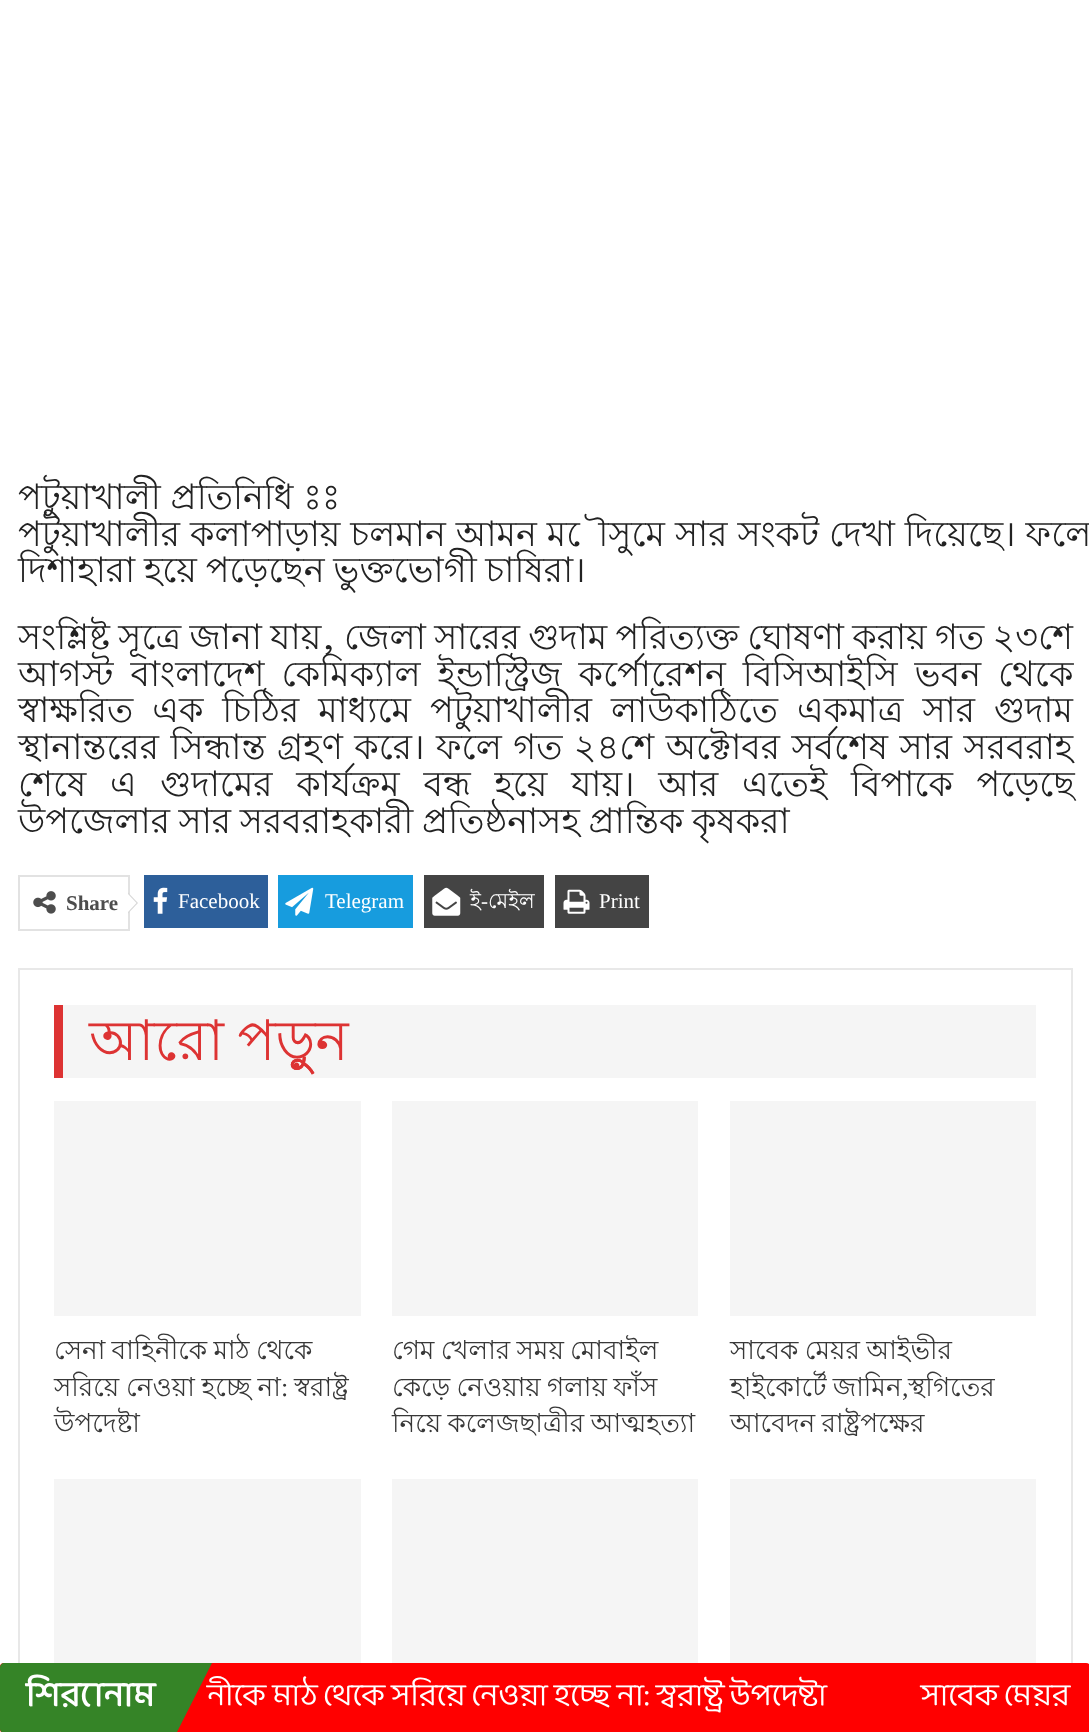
async function draw(canvas) {
  canvas.width = 1089
  canvas.height = 1732
  const ctx = canvas.getContext('2d')
  ctx.miterLimit = 4
  ctx.fontKerning = 'normal'
  async function loadImage(src) {
    const img = new Image()
    img.src = src
    await img.decode()
    return img
  }

  ctx.fillStyle = '#fff'
  ctx.fillRect(0, 0, 1089, 1732)
  ctx.font = '35px Lohit Bengali'
  ctx.fillStyle = '#222'
  ctx.fillText('পটুয়াখালী প্রতিনিধি ঃঃ', 18, 509)
  ctx.wordSpacing = '0.25px'
  ctx.fillText('পটুয়াখালীর কলাপাড়ায় চলমান আমন মৌসুমে সার সংকট দেখা দিয়েছে। ফলে', 18, 546)
  ctx.wordSpacing = '-1px'
  ctx.fillText('দিশাহারা হয়ে পড়েছেন ভুক্তভোগী চাষিরা।', 18, 582)
  ctx.wordSpacing = '-1.4px'
  ctx.fillText('সংশ্লিষ্ট সূত্রে জানা যায়, জেলা সারের গুদাম পরিত্যক্ত ঘোষণা করায় গত ২৩শে', 18, 649)
  ctx.wordSpacing = '7.25px'
  ctx.fillText('আগস্ট বাংলাদেশ কেমিক্যাল ইন্ডাস্ট্রিজ কর্পোরেশন বিসিআইসি ভবন থেকে', 18, 686)
  ctx.wordSpacing = '9.25px'
  ctx.fillText('স্বাক্ষরিত এক চিঠির মাধ্যমে পটুয়াখালীর লাউকাঠিতে একমাত্র সার গুদাম', 18, 722)
  ctx.wordSpacing = '1.75px'
  ctx.fillText('স্থানান্তরের সিন্ধান্ত গ্রহণ করে। ফলে গত ২৪শে অক্টোবর সর্বশেষ সার সরবরাহ', 18, 759)
  ctx.wordSpacing = '14px'
  ctx.fillText('শেষে এ গুদামের কার্যক্রম বন্ধ হয়ে যায়। আর এতেই বিপাকে পড়েছে', 18, 796)
  ctx.wordSpacing = '-1px'
  ctx.fillText('উপজেলার সার সরবরাহকারী প্রতিষ্ঠনাসহ প্রান্তিক কৃষকরা', 18, 833)
  ctx.strokeStyle = '#e2e2e2'
  ctx.lineWidth = 2
  ctx.strokeRect(19, 876, 110, 54)
  ctx.drawImage(await loadImage('image0.png'), 33, 891, 23, 23)
  ctx.fillStyle = '#d7d7d7'
  ctx.beginPath()
  ctx.moveTo(128, 913.5)
  ctx.lineTo(128, 892.5)
  ctx.lineTo(138, 903)
  ctx.closePath()
  ctx.fill()
  ctx.wordSpacing = '0px'
  ctx.font = 'bold 21px Liberation Serif'
  ctx.fillStyle = '#4d4d4d'
  ctx.fillText('Share', 66, 910)
  ctx.fillStyle = '#fff'
  ctx.beginPath()
  ctx.moveTo(128, 912)
  ctx.lineTo(128, 894)
  ctx.lineTo(136.5, 903)
  ctx.closePath()
  ctx.fill()
  ctx.fillStyle = '#2d5f9a'
  ctx.fillRect(144, 875, 124, 53)
  ctx.drawImage(await loadImage('image1.png'), 153, 887, 15, 27)
  ctx.font = '21px Liberation Serif'
  ctx.fillStyle = '#fff'
  ctx.fillText('Facebook', 178, 908)
  ctx.fillStyle = '#179cde'
  ctx.fillRect(278, 875, 135, 53)
  ctx.drawImage(await loadImage('image2.png'), 285, 887, 29, 29)
  ctx.fillStyle = '#fff'
  ctx.fillText('Telegram', 325, 908)
  ctx.fillStyle = '#444'
  ctx.fillRect(424, 875, 120, 53)
  ctx.drawImage(await loadImage('image3.png'), 432, 887, 29, 29)
  ctx.font = '21px Lohit Bengali'
  ctx.fillStyle = '#fff'
  ctx.fillText('ই', 470, 908)
  ctx.font = '21px Liberation Serif'
  ctx.fillText('-', 481, 908)
  ctx.font = '21px Lohit Bengali'
  ctx.fillText('মেইল', 488, 908)
  ctx.fillStyle = '#444'
  ctx.fillRect(555, 875, 94, 53)
  ctx.drawImage(await loadImage('image4.png'), 563, 889, 27, 25)
  ctx.font = '21px Liberation Serif'
  ctx.fillStyle = '#fff'
  ctx.fillText('Print', 599, 908)
  ctx.strokeStyle = '#e8e8e8'
  ctx.strokeRect(19, 969, 1053, 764)
  ctx.fillStyle = '#f5f5f5'
  ctx.fillRect(63, 1005, 973, 73)
  ctx.fillStyle = '#d33'
  ctx.fillRect(54, 1005, 9, 73)
  ctx.wordSpacing = '-2px'
  ctx.font = '56px Lohit Bengali'
  ctx.fillText('আরো পড়ুুন', 89, 1060)
  ctx.fillStyle = '#f5f5f5'
  ctx.fillRect(54, 1101, 307, 215)
  ctx.wordSpacing = '-1px'
  ctx.font = '26.25px Lohit Bengali'
  ctx.fillStyle = '#383838'
  ctx.fillText('সেনা বাহিনীকে মাঠ থেকে', 54, 1359)
  ctx.wordSpacing = '-0.5px'
  ctx.fillText('সরিয়ে নেওয়া হচ্ছে না', 54, 1396)
  ctx.wordSpacing = '0px'
  ctx.font = '26.25px Liberation Serif'
  ctx.fillText(':', 281, 1396)
  ctx.font = '26.25px Lohit Bengali'
  ctx.fillText('স্বরাষ্ট্র', 294, 1396)
  ctx.fillText('উপদেষ্টা', 54, 1432)
  ctx.fillStyle = '#f5f5f5'
  ctx.fillRect(392, 1101, 306, 215)
  ctx.wordSpacing = '-1px'
  ctx.fillStyle = '#383838'
  ctx.fillText('গেম খেলার সময় মোবাইল', 392, 1359)
  ctx.fillText('কেড়ে নেওয়ায় গলায় ফাঁস', 392, 1396)
  ctx.fillText('নিয়ে কলেজছাত্রীর আত্মহত্যা', 392, 1432)
  ctx.fillStyle = '#f5f5f5'
  ctx.fillRect(730, 1101, 306, 215)
  ctx.fillStyle = '#383838'
  ctx.fillText('সাবেক মেয়র আইভীর', 730, 1359)
  ctx.fillText('হাইকোর্টে জামিন', 730, 1396)
  ctx.wordSpacing = '0px'
  ctx.font = '26.25px Liberation Serif'
  ctx.fillText(',', 902, 1396)
  ctx.font = '26.25px Lohit Bengali'
  ctx.fillText('স্থগিতের', 908, 1396)
  ctx.wordSpacing = '-1px'
  ctx.fillText('আবেদন রাষ্ট্রপক্ষের', 730, 1432)
  ctx.fillStyle = '#f5f5f5'
  ctx.fillRect(54, 1479, 307, 184)
  ctx.fillRect(392, 1479, 306, 184)
  ctx.fillRect(730, 1479, 306, 184)
  ctx.fillStyle = '#f00'
  ctx.beginPath()
  ctx.roundRect(0, 1663, 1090, 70, 4)
  ctx.fill()
  ctx.fillStyle = '#358427'
  ctx.beginPath()
  ctx.moveTo(4, 1663)
  ctx.lineTo(177, 1663)
  ctx.lineTo(177, 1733)
  ctx.lineTo(4, 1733)
  ctx.bezierCurveTo(2, 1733, 0, 1731, 0, 1729)
  ctx.lineTo(0, 1667)
  ctx.bezierCurveTo(0, 1665, 2, 1663, 4, 1663)
  ctx.closePath()
  ctx.fill()
  ctx.wordSpacing = '0px'
  ctx.font = 'bold 35px "Baloo Da 2"'
  ctx.fillStyle = '#fff'
  ctx.fillText('শিরোনাম', 26, 1706)
  ctx.wordSpacing = '-0.5px'
  ctx.font = '31.5px "Baloo Da 2"'
  ctx.fillText('নীকে মাঠ থেকে সরিয়ে নেওয়া হচ্ছে না: স্বরাষ্ট্র উপদেষ্টা', 207, 1705)
  ctx.fillStyle = '#358427'
  ctx.beginPath()
  ctx.moveTo(177, 1732)
  ctx.lineTo(212, 1663)
  ctx.lineTo(177, 1663)
  ctx.closePath()
  ctx.fill()
  ctx.wordSpacing = '-1px'
  ctx.fillStyle = '#fff'
  ctx.fillText('সাবেক মেয়র', 921, 1705)
}

draw(document.querySelector('canvas'))
